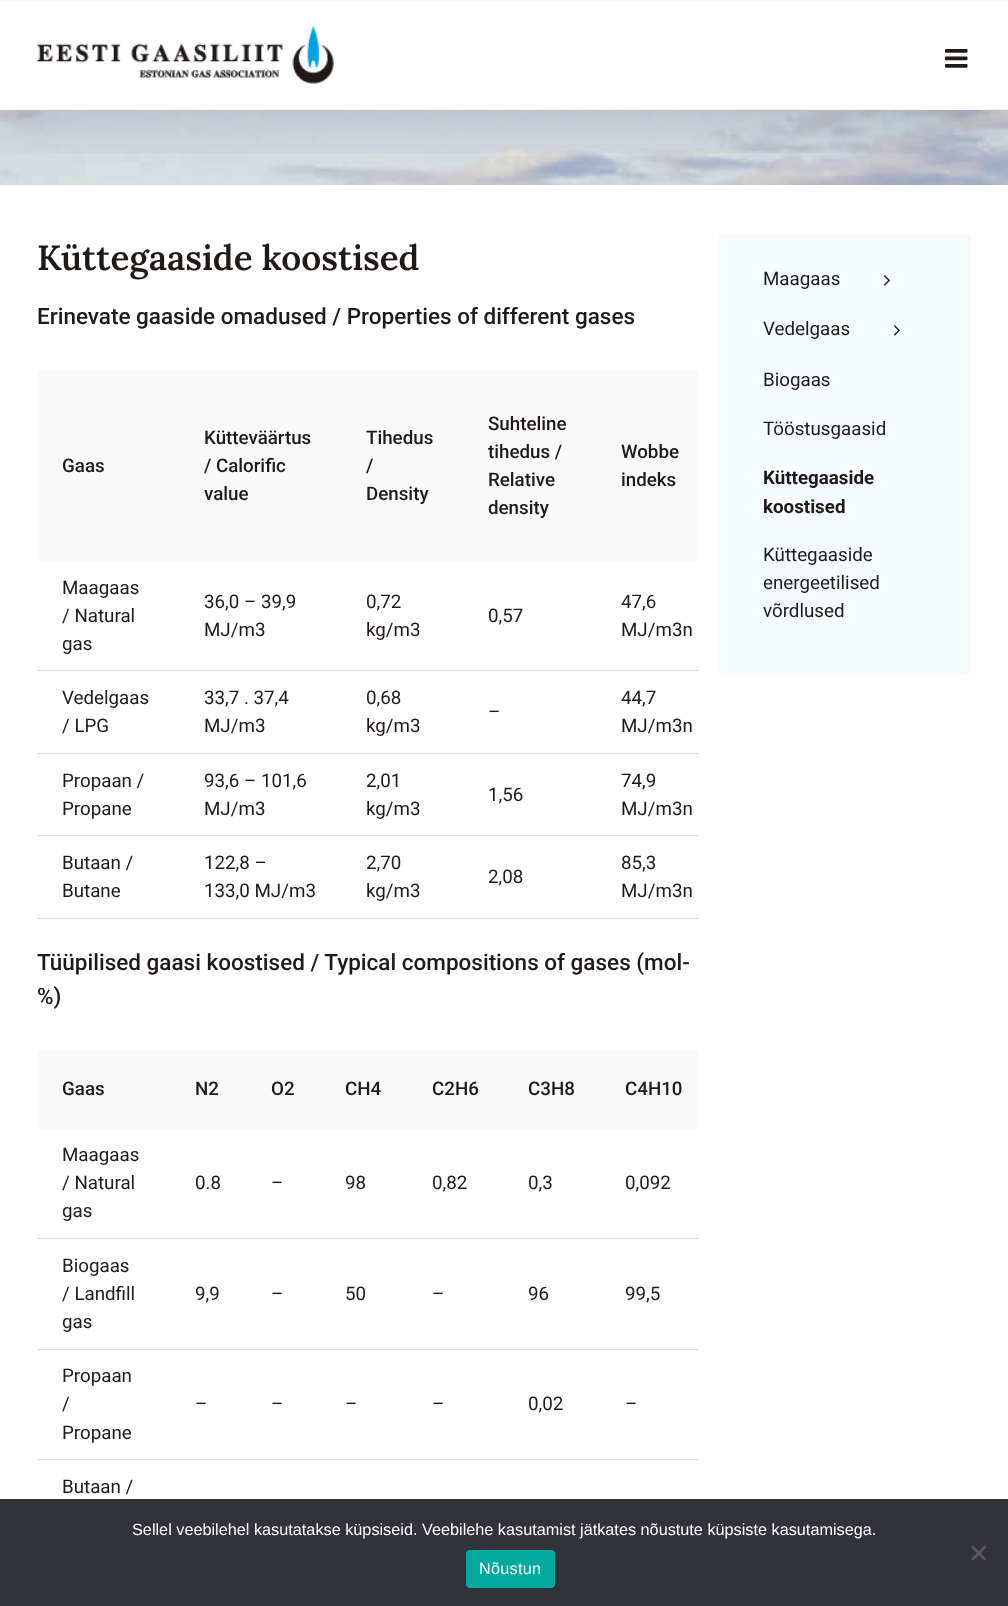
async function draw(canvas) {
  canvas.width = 1008
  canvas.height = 1606
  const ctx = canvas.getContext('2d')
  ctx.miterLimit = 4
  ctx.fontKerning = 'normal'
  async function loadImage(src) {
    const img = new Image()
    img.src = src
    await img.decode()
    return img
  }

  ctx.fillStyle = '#fff'
  ctx.fillRect(0, 0, 1008, 1606)
  ctx.drawImage(await loadImage('image2.png'), 0, 110, 1008, 75)
  ctx.save()
  ctx.beginPath()
  ctx.rect(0, 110, 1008, 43)
  ctx.clip()
  ctx.fillStyle = '#00000024'
  ctx.filter = 'blur(31px)'
  ctx.beginPath()
  ctx.rect(3, 15, 1003, 105)
  ctx.fill()
  ctx.filter = 'none'
  ctx.restore()
  ctx.fillStyle = '#f7f7f7'
  ctx.fillRect(0, 0, 1008, 1)
  ctx.fillRect(0, 109, 1008, 1)
  ctx.drawImage(await loadImage('image0.png'), 37, 26, 297, 58)
  ctx.drawImage(await loadImage('image1.png'), 945, 49, 23, 19)
  ctx.font = '600 35px Lora'
  ctx.fillStyle = '#1f1a17'
  ctx.fillText('Küttegaaside koostised', 37, 270)
  ctx.font = '500 22.5px Roboto'
  ctx.fillText('Erinevate gaaside omadused / Properties of different gases', 37, 324)
  ctx.fillStyle = '#f9f9f9'
  ctx.fillRect(38, 370, 660, 191)
  ctx.font = '500 18.75px Roboto'
  ctx.fillStyle = '#1f1a17'
  ctx.fillText('Gaas', 62, 472)
  ctx.fillText('Kütteväärtus', 204, 444)
  ctx.fillText('/ Calorific', 204, 472)
  ctx.fillText('value', 204, 500)
  ctx.fillText('Tihedus', 366, 444)
  ctx.fillText('/', 366, 472)
  ctx.fillText('Density', 366, 500)
  ctx.fillText('Suhteline', 488, 430)
  ctx.fillText('tihedus /', 488, 458)
  ctx.fillText('Relative', 488, 486)
  ctx.fillText('density', 488, 514)
  ctx.fillText('Wobbe', 621, 458)
  ctx.fillText('indeks', 621, 486)
  ctx.font = '18.75px Roboto'
  ctx.fillText('Maagaas', 62, 594)
  ctx.fillText('/ Natural', 62, 622)
  ctx.fillText('gas', 62, 650)
  ctx.fillText('36,0 – 39,9', 204, 608)
  ctx.fillText('MJ/m3', 204, 636)
  ctx.fillText('0,72', 366, 608)
  ctx.fillText('kg/m3', 366, 636)
  ctx.fillText('0,57', 488, 622)
  ctx.fillStyle = '#dcdcdc'
  ctx.fillRect(38, 670, 660, 1)
  ctx.fillStyle = '#1f1a17'
  ctx.fillText('47,6', 621, 608)
  ctx.fillText('MJ/m3n', 621, 636)
  ctx.fillText('Vedelgaas', 62, 704)
  ctx.fillText('/ LPG', 62, 732)
  ctx.fillText('33,7 . 37,4', 204, 704)
  ctx.fillText('MJ/m3', 204, 732)
  ctx.fillText('0,68', 366, 704)
  ctx.fillText('kg/m3', 366, 732)
  ctx.fillText('–', 488, 718)
  ctx.fillStyle = '#dcdcdc'
  ctx.fillRect(38, 753, 660, 1)
  ctx.fillStyle = '#1f1a17'
  ctx.fillText('44,7', 621, 704)
  ctx.fillText('MJ/m3n', 621, 732)
  ctx.fillText('Propaan /', 62, 787)
  ctx.fillText('Propane', 62, 815)
  ctx.fillText('93,6 – 101,6', 204, 787)
  ctx.fillText('MJ/m3', 204, 815)
  ctx.fillText('2,01', 366, 787)
  ctx.fillText('kg/m3', 366, 815)
  ctx.fillText('1,56', 488, 801)
  ctx.fillStyle = '#dcdcdc'
  ctx.fillRect(38, 835, 660, 1)
  ctx.fillStyle = '#1f1a17'
  ctx.fillText('74,9', 621, 787)
  ctx.fillText('MJ/m3n', 621, 815)
  ctx.fillText('Butaan /', 62, 869)
  ctx.fillText('Butane', 62, 897)
  ctx.fillText('122,8 –', 204, 869)
  ctx.fillText('133,0 MJ/m3', 204, 897)
  ctx.fillText('2,70', 366, 869)
  ctx.fillText('kg/m3', 366, 897)
  ctx.fillText('2,08', 488, 883)
  ctx.fillStyle = '#dcdcdc'
  ctx.fillRect(38, 918, 660, 1)
  ctx.fillStyle = '#1f1a17'
  ctx.fillText('85,3', 621, 869)
  ctx.fillText('MJ/m3n', 621, 897)
  ctx.font = '500 22.5px Roboto'
  ctx.fillText('Tüüpilised gaasi koostised / Typical compositions of gases (mol-', 37, 970)
  ctx.fillText('%)', 37, 1004)
  ctx.fillStyle = '#f9f9f9'
  ctx.fillRect(38, 1050, 660, 79)
  ctx.font = '500 18.75px Roboto'
  ctx.fillStyle = '#1f1a17'
  ctx.fillText('Gaas', 62, 1095)
  ctx.fillText('N2', 195, 1095)
  ctx.fillText('O2', 271, 1095)
  ctx.fillText('CH4', 345, 1095)
  ctx.fillText('C2H6', 432, 1095)
  ctx.fillText('C3H8', 528, 1095)
  ctx.fillText('C4H10', 625, 1095)
  ctx.font = '18.75px Roboto'
  ctx.fillText('Maagaas', 62, 1161)
  ctx.fillText('/ Natural', 62, 1189)
  ctx.fillText('gas', 62, 1217)
  ctx.fillText('0.8', 195, 1189)
  ctx.fillText('–', 271, 1189)
  ctx.fillText('98', 345, 1189)
  ctx.fillText('0,82', 432, 1189)
  ctx.fillText('0,3', 528, 1189)
  ctx.fillStyle = '#dcdcdc'
  ctx.fillRect(38, 1238, 660, 1)
  ctx.fillStyle = '#1f1a17'
  ctx.fillText('0,092', 625, 1189)
  ctx.fillText('Biogaas', 62, 1272)
  ctx.fillText('/ Landfill', 62, 1300)
  ctx.fillText('gas', 62, 1328)
  ctx.fillText('9,9', 195, 1300)
  ctx.fillText('–', 271, 1300)
  ctx.fillText('50', 345, 1300)
  ctx.fillText('–', 432, 1300)
  ctx.fillText('96', 528, 1300)
  ctx.fillStyle = '#dcdcdc'
  ctx.fillRect(38, 1349, 660, 1)
  ctx.fillStyle = '#1f1a17'
  ctx.fillText('99,5', 625, 1300)
  ctx.fillText('Propaan', 62, 1382)
  ctx.fillText('/', 62, 1410)
  ctx.fillText('Propane', 62, 1439)
  ctx.fillText('–', 195, 1410)
  ctx.fillText('–', 271, 1410)
  ctx.fillText('–', 345, 1410)
  ctx.fillText('–', 432, 1410)
  ctx.fillText('0,02', 528, 1410)
  ctx.fillStyle = '#dcdcdc'
  ctx.fillRect(38, 1459, 660, 1)
  ctx.fillStyle = '#1f1a17'
  ctx.fillText('–', 625, 1410)
  ctx.fillText('Butaan /', 62, 1493)
  ctx.fillStyle = '#f4fcff'
  ctx.fillRect(719, 235, 252, 439)
  ctx.fillStyle = '#1f1a17'
  ctx.fillText('Maagaas', 763, 285)
  ctx.drawImage(await loadImage('image3.png'), 883, 275, 7, 11)
  ctx.fillText('Vedelgaas', 763, 335)
  ctx.drawImage(await loadImage('image3.png'), 893, 325, 7, 11)
  ctx.fillText('Biogaas', 763, 386)
  ctx.fillText('Tööstusgaasid', 763, 435)
  ctx.font = 'bold 18.75px Roboto'
  ctx.fillText('Küttegaaside', 763, 484)
  ctx.fillText('koostised', 763, 513)
  ctx.font = '18.75px Roboto'
  ctx.fillText('Küttegaaside', 763, 561)
  ctx.fillText('energeetilised', 763, 589)
  ctx.fillText('võrdlused', 763, 617)
  ctx.fillStyle = '#32323a'
  ctx.fillRect(0, 1499, 1008, 107)
  ctx.font = '16.25px Liberation Sans'
  ctx.fillStyle = '#fff'
  ctx.fillText('Sellel veebilehel kasutatakse küpsiseid. Veebilehe kasutamist jätkates nõustute küpsiste kasutamisega.', 132, 1535)
  ctx.fillStyle = '#59595d'
  ctx.beginPath()
  ctx.moveTo(984.5, 1545.5)
  ctx.lineTo(986.5, 1547.5)
  ctx.lineTo(973, 1560.5)
  ctx.lineTo(971, 1559)
  ctx.closePath()
  ctx.fill()
  ctx.beginPath()
  ctx.moveTo(971, 1547.5)
  ctx.lineTo(973, 1545.5)
  ctx.lineTo(986.5, 1559)
  ctx.lineTo(984.5, 1560.5)
  ctx.closePath()
  ctx.fill()
  ctx.fillStyle = '#00a99d'
  ctx.beginPath()
  ctx.roundRect(466, 1550, 89, 38, 4)
  ctx.fill()
  ctx.letterSpacing = '0.25px'
  ctx.fillStyle = '#fff'
  ctx.fillText('Nõustun', 479, 1574)
}

draw(document.querySelector('canvas'))
